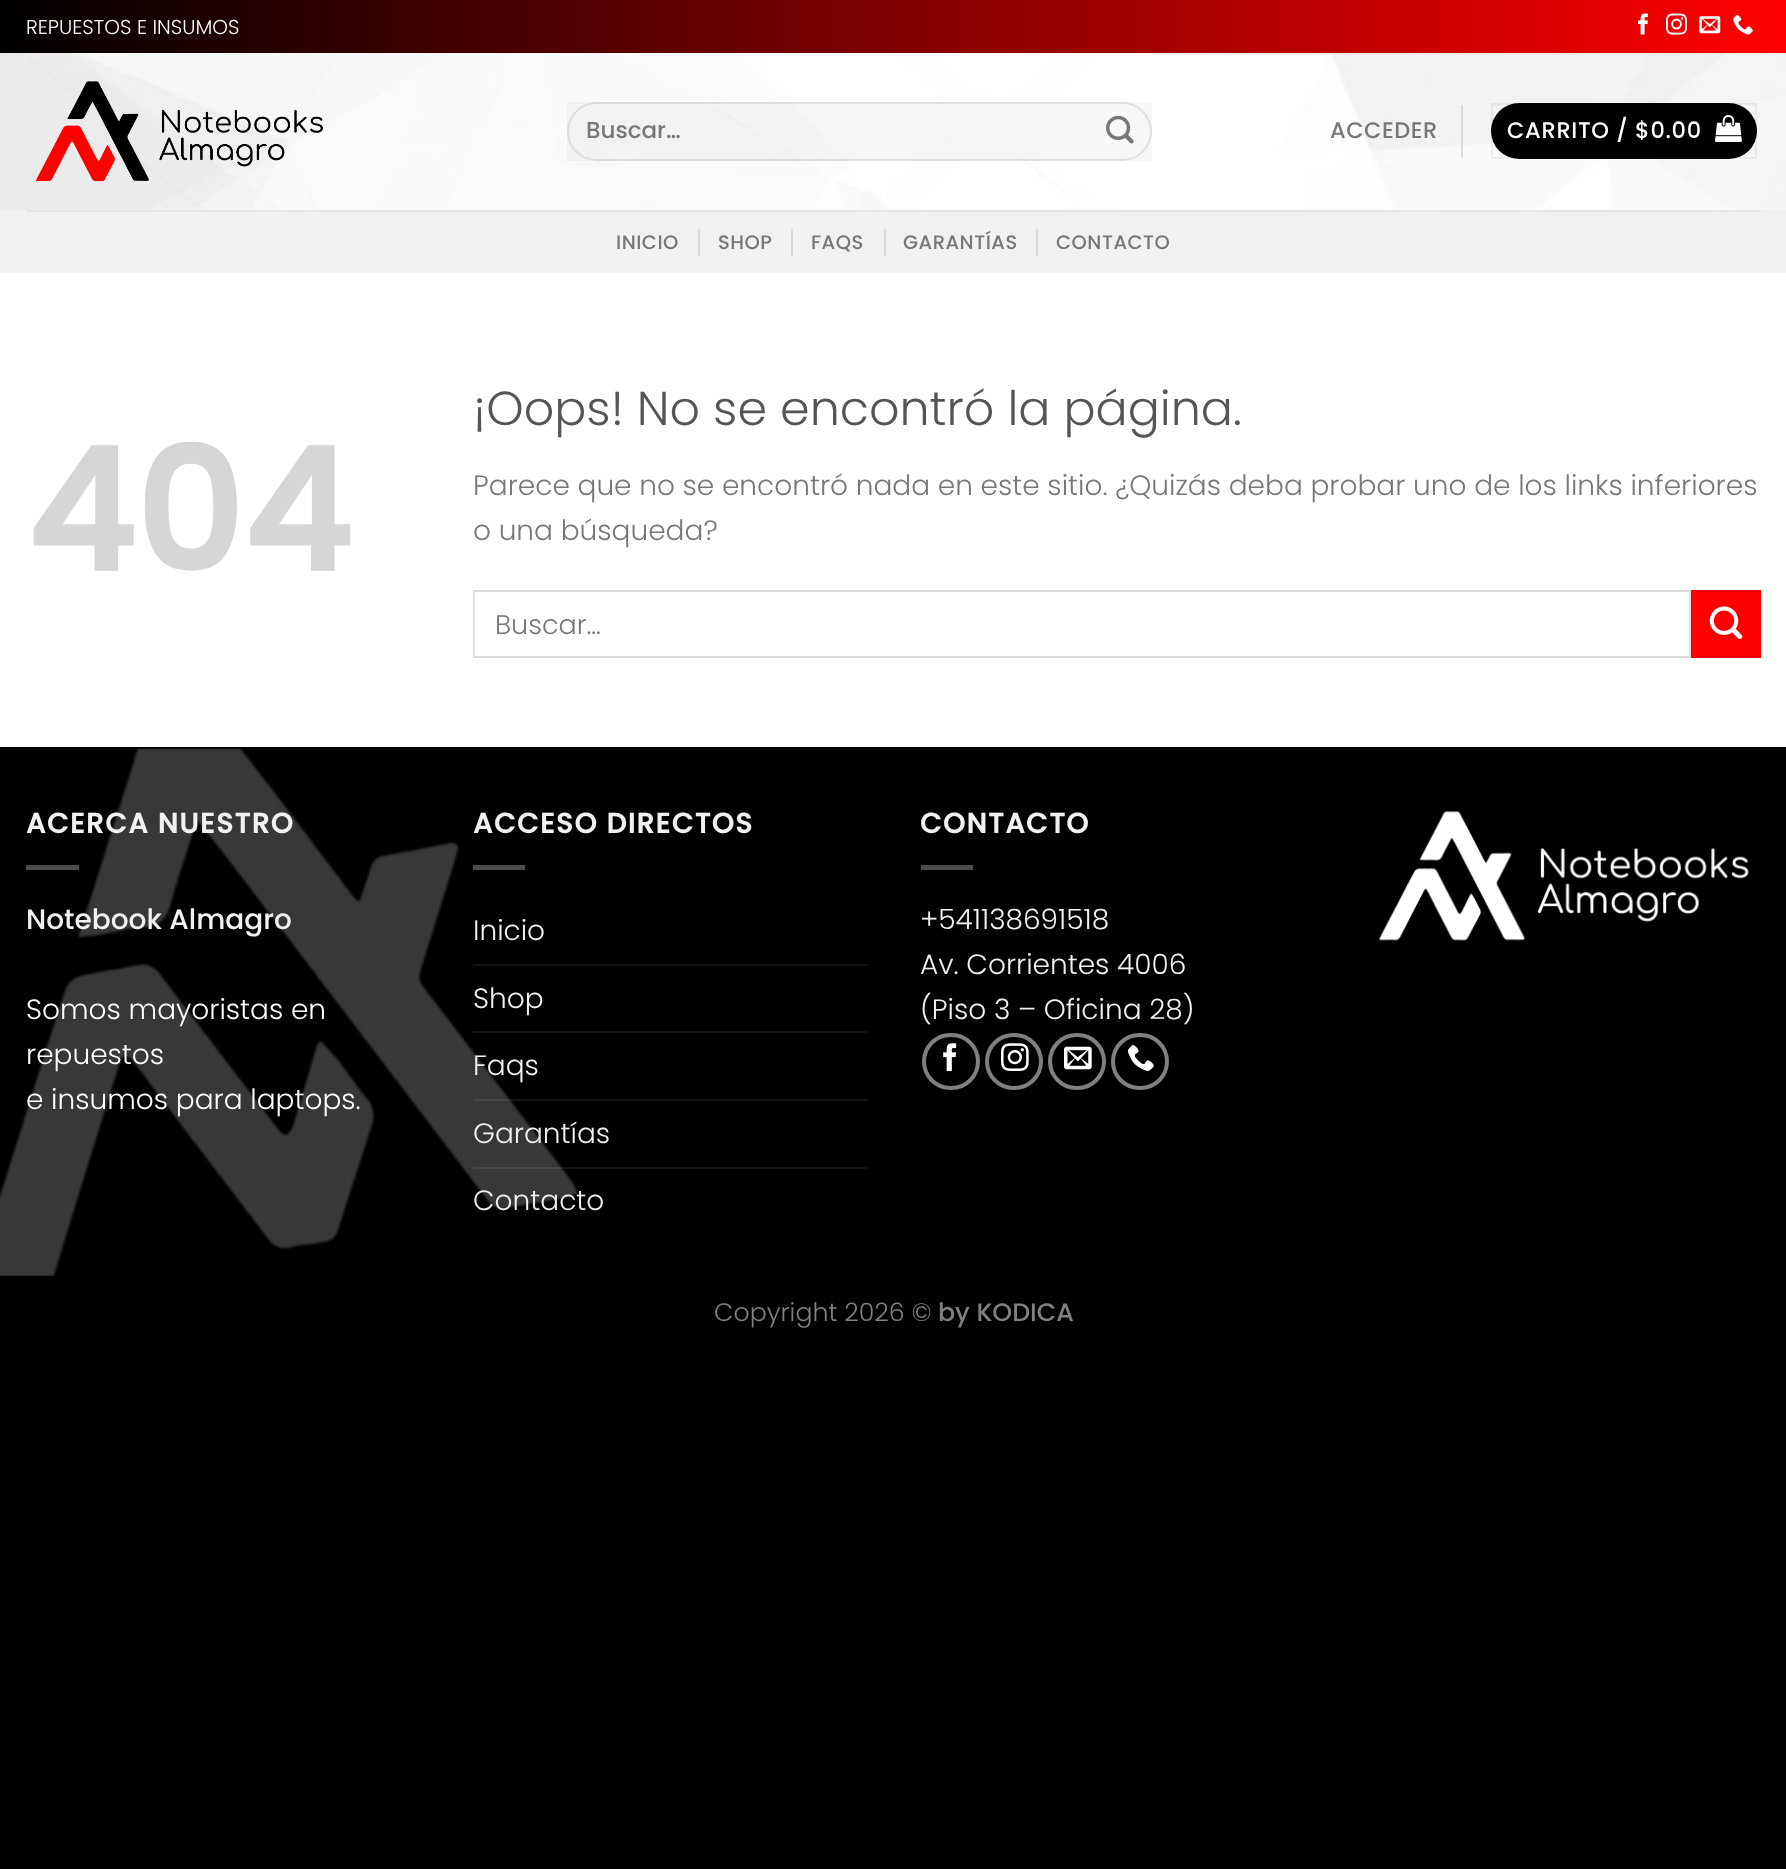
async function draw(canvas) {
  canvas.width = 1786
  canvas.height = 1869
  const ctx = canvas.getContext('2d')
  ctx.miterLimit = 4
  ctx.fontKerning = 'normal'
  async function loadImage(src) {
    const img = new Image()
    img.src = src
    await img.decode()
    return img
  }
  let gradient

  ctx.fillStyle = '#000'
  ctx.fillRect(0, 0, 1786, 1869)
  ctx.fillStyle = '#fff'
  ctx.fillRect(0, 273, 1786, 474)
  gradient = ctx.createLinearGradient(0, 26, 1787, 26)
  gradient.addColorStop(0, '#000')
  gradient.addColorStop(1, '#f00')
  ctx.fillStyle = gradient
  ctx.fillRect(18, 0, 1768, 53)
  ctx.font = '300 20px Poppins'
  ctx.fillStyle = '#fff'
  ctx.fillText('REPUESTOS E INSUMOS', 26, 34)
  ctx.drawImage(await loadImage('image0.png'), 1638, 13, 10, 22)
  ctx.drawImage(await loadImage('image1.png'), 1666, 13, 21, 22)
  ctx.drawImage(await loadImage('image2.png'), 1699, 16, 22, 18)
  ctx.drawImage(await loadImage('image3.png'), 1733, 14, 20, 21)
  ctx.drawImage(await loadImage('image4.png'), 0, 53, 1786, 157)
  ctx.drawImage(await loadImage('image5.png'), 36, 81, 287, 101)
  ctx.fillStyle = '#00000008'
  ctx.fillRect(567, 102, 585, 59)
  ctx.beginPath()
  ctx.roundRect(568, 103, 583, 57, 28.5)
  ctx.strokeStyle = '#00000017'
  ctx.lineWidth = 2
  ctx.stroke()
  ctx.font = '500 23px Poppins'
  ctx.fillStyle = '#777'
  ctx.fillText('Buscar…', 586, 138)
  ctx.drawImage(await loadImage('image6.png'), 1106, 115, 28, 29)
  ctx.letterSpacing = '0.5px'
  ctx.font = '500 22.5px Poppins'
  ctx.fillText('ACCEDER', 1330, 138)
  ctx.fillStyle = '#0000001a'
  ctx.fillRect(1461, 105, 2, 53)
  ctx.fillStyle = '#000'
  ctx.beginPath()
  ctx.roundRect(1491, 103, 266, 56, 28)
  ctx.fill()
  ctx.strokeStyle = '#0000000d'
  ctx.strokeRect(1492, 104, 264, 54)
  ctx.letterSpacing = '0.7px'
  ctx.fillStyle = '#fff'
  ctx.fillText('CARRITO / $0.00', 1507, 138)
  ctx.drawImage(await loadImage('image7.png'), 1715, 115, 27, 27)
  ctx.fillStyle = '#f1f1f1'
  ctx.fillRect(0, 210, 1786, 63)
  ctx.fillStyle = '#e5e5e5'
  ctx.fillRect(26, 210, 1735, 2)
  ctx.letterSpacing = '0.5px'
  ctx.font = '500 19.5px Poppins'
  ctx.fillStyle = '#777'
  ctx.fillText('INICIO', 616, 249)
  ctx.fillStyle = '#d9d9d9'
  ctx.fillRect(698, 229, 2, 27)
  ctx.fillStyle = '#777'
  ctx.fillText('SHOP', 718, 249)
  ctx.fillStyle = '#d9d9d9'
  ctx.fillRect(791, 229, 2, 27)
  ctx.fillStyle = '#777'
  ctx.fillText('FAQS', 811, 249)
  ctx.fillStyle = '#d9d9d9'
  ctx.fillRect(884, 229, 2, 27)
  ctx.fillStyle = '#777'
  ctx.fillText('GARANTÍAS', 903, 249)
  ctx.fillStyle = '#d9d9d9'
  ctx.fillRect(1036, 229, 2, 27)
  ctx.fillStyle = '#777'
  ctx.fillText('CONTACTO', 1056, 249)
  ctx.letterSpacing = '0px'
  ctx.font = 'bold 168px Poppins'
  ctx.fillStyle = '#d6d6d6'
  ctx.fillText('404', 26, 571)
  ctx.font = '300 47.6px Poppins'
  ctx.fillStyle = '#555'
  ctx.fillText('¡Oops! No se encontró la página.', 473, 425)
  ctx.font = '300 28px Poppins'
  ctx.fillStyle = '#777'
  ctx.fillText('Parece que no se encontró nada en este sitio. ¿Quizás deba probar uno de los links inferiores', 473, 495)
  ctx.fillText('o una búsqueda?', 473, 540)
  ctx.strokeStyle = '#ddd'
  ctx.strokeRect(474, 591, 1216, 66)
  ctx.font = '300 27px Poppins'
  ctx.fillText('Buscar…', 495, 634)
  ctx.fillStyle = '#f00'
  ctx.beginPath()
  ctx.rect(1692, 591, 68, 66)
  ctx.fill()
  ctx.strokeStyle = '#f20000'
  ctx.stroke()
  ctx.drawImage(await loadImage('image8.png'), 1709, 606, 34, 33)
  ctx.drawImage(await loadImage('image9.png'), 0, 748, 578, 528)
  ctx.letterSpacing = '1.4px'
  ctx.font = 'bold 28px Poppins'
  ctx.fillStyle = '#f1f1f1'
  ctx.fillText('ACERCA NUESTRO', 26, 833)
  ctx.fillStyle = '#4d4d4d'
  ctx.fillRect(26, 865, 53, 5)
  ctx.letterSpacing = '0px'
  ctx.font = '500 28px Poppins'
  ctx.fillStyle = '#f1f1f1'
  ctx.fillText('Notebook Almagro', 26, 929)
  ctx.font = '300 28px Poppins'
  ctx.fillStyle = '#fff'
  ctx.fillText('Somos mayoristas en', 26, 1019)
  ctx.fillText('repuestos', 26, 1064)
  ctx.fillText('e insumos para laptops.', 26, 1109)
  ctx.letterSpacing = '1.4px'
  ctx.font = 'bold 28px Poppins'
  ctx.fillStyle = '#f1f1f1'
  ctx.fillText('ACCESO DIRECTOS', 473, 833)
  ctx.fillStyle = '#4d4d4d'
  ctx.fillRect(473, 865, 52, 5)
  ctx.letterSpacing = '0px'
  ctx.font = '300 28px Poppins'
  ctx.fillStyle = '#f1f1f1'
  ctx.fillText('Inicio', 473, 940)
  ctx.fillStyle = '#141414'
  ctx.fillRect(473, 964, 395, 2)
  ctx.fillStyle = '#f1f1f1'
  ctx.fillText('Shop', 473, 1008)
  ctx.fillStyle = '#141414'
  ctx.fillRect(473, 1031, 395, 2)
  ctx.fillStyle = '#f1f1f1'
  ctx.fillText('Faqs', 473, 1075)
  ctx.fillStyle = '#ffffff14'
  ctx.fillRect(473, 1099, 395, 2)
  ctx.fillStyle = '#f1f1f1'
  ctx.fillText('Garantías', 473, 1143)
  ctx.fillStyle = '#ffffff14'
  ctx.fillRect(473, 1167, 395, 2)
  ctx.fillStyle = '#f1f1f1'
  ctx.fillText('Contacto', 473, 1210)
  ctx.letterSpacing = '1.4px'
  ctx.font = 'bold 28px Poppins'
  ctx.fillText('CONTACTO', 920, 833)
  ctx.fillStyle = '#4d4d4d'
  ctx.fillRect(921, 865, 52, 5)
  ctx.letterSpacing = '0px'
  ctx.font = '300 28px Poppins'
  ctx.fillStyle = '#f1f1f1'
  ctx.fillText('+541138691518', 920, 929)
  ctx.fillText('Av. Corrientes 4006', 920, 974)
  ctx.fillText('(Piso 3 – Oficina 28)', 920, 1019)
  ctx.beginPath()
  ctx.roundRect(924, 1035, 54, 53, 26.5)
  ctx.strokeStyle = '#808080'
  ctx.lineWidth = 4
  ctx.stroke()
  ctx.drawImage(await loadImage('image10.png'), 943, 1043, 14, 28)
  ctx.beginPath()
  ctx.roundRect(987, 1035, 54, 53, 26.5)
  ctx.stroke()
  ctx.drawImage(await loadImage('image11.png'), 1001, 1043, 28, 28)
  ctx.beginPath()
  ctx.roundRect(1050, 1035, 54, 53, 26.5)
  ctx.stroke()
  ctx.drawImage(await loadImage('image12.png'), 1064, 1046, 28, 24)
  ctx.beginPath()
  ctx.roundRect(1113, 1035, 54, 53, 26.5)
  ctx.stroke()
  ctx.drawImage(await loadImage('image13.png'), 1127, 1045, 27, 26)
  ctx.drawImage(await loadImage('image14.png'), 1378, 811, 371, 130)
  ctx.font = '300 25.25px Poppins'
  ctx.fillStyle = '#808080'
  ctx.fillText('Copyright 2026 ©', 714, 1321)
  ctx.font = '500 25.25px Poppins'
  ctx.fillText('by KODICA', 938, 1321)
}

draw(document.querySelector('canvas'))
